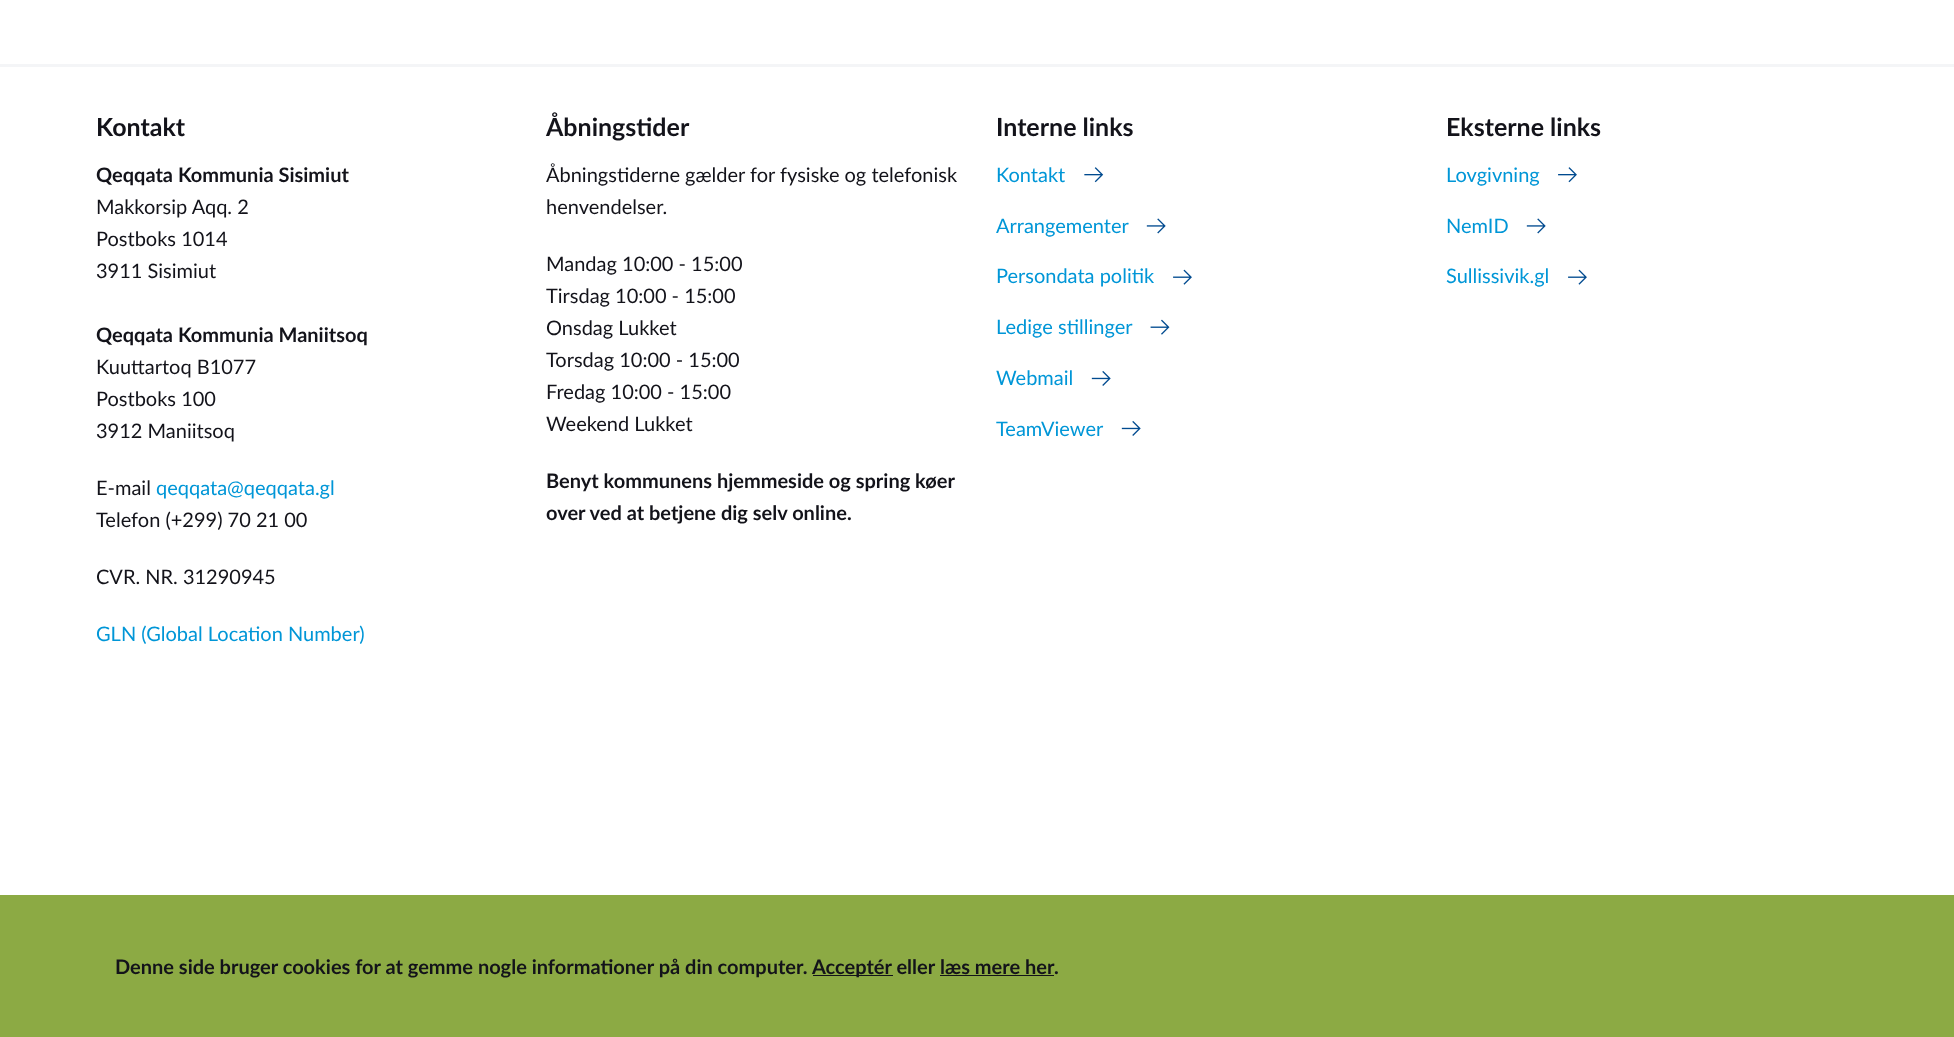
async function draw(canvas) {
  canvas.width = 1954
  canvas.height = 1037
  const ctx = canvas.getContext('2d')
  ctx.miterLimit = 4
  ctx.fontKerning = 'normal'
  async function loadImage(src) {
    const img = new Image()
    img.src = src
    await img.decode()
    return img
  }

  ctx.fillStyle = '#fff'
  ctx.fillRect(0, 0, 1954, 1037)
  ctx.fillStyle = '#f4f5f7'
  ctx.fillRect(0, 64, 1954, 3)
  ctx.font = 'bold 25px Lato'
  ctx.fillStyle = '#13131a'
  ctx.fillText('Kontakt', 96, 136)
  ctx.font = 'bold 20px Lato'
  ctx.fillText('Qeqqata Kommunia Sisimiut', 96, 182)
  ctx.font = '20px Lato'
  ctx.fillText('Makkorsip Aqq. 2', 96, 214)
  ctx.fillText('Postboks 1014', 96, 246)
  ctx.fillText('3911 Sisimiut', 96, 278)
  ctx.font = 'bold 20px Lato'
  ctx.fillText('Qeqqata Kommunia Maniitsoq', 96, 342)
  ctx.font = '20px Lato'
  ctx.fillText('Kuuttartoq B1077', 96, 374)
  ctx.fillText('Postboks 100', 96, 406)
  ctx.fillText('3912 Maniitsoq', 96, 438)
  ctx.fillText('E-mail', 96, 495)
  ctx.fillStyle = '#0096d7'
  ctx.fillText('qeqqata@qeqqata.gl', 156, 495)
  ctx.fillStyle = '#13131a'
  ctx.fillText('Telefon (+299) 70 21 00', 96, 527)
  ctx.fillText('CVR. NR. 31290945', 96, 584)
  ctx.fillStyle = '#0096d7'
  ctx.fillText('GLN (Global Location Number)', 96, 641)
  ctx.font = 'bold 25px Lato'
  ctx.fillStyle = '#13131a'
  ctx.fillText('Åbningstider', 546, 136)
  ctx.font = '20px Lato'
  ctx.fillText('Åbningstiderne gælder for fysiske og telefonisk', 546, 182)
  ctx.fillText('henvendelser.', 546, 214)
  ctx.fillText('Mandag 10:00 - 15:00', 546, 271)
  ctx.fillText('Tirsdag 10:00 - 15:00', 546, 303)
  ctx.fillText('Onsdag Lukket', 546, 335)
  ctx.fillText('Torsdag 10:00 - 15:00', 546, 367)
  ctx.fillText('Fredag 10:00 - 15:00', 546, 399)
  ctx.fillText('Weekend Lukket', 546, 431)
  ctx.font = 'bold 20px Lato'
  ctx.fillText('Benyt kommunens hjemmeside og spring køer', 546, 488)
  ctx.fillText('over ved at betjene dig selv online.', 546, 520)
  ctx.font = 'bold 25px Lato'
  ctx.fillText('Interne links', 996, 136)
  ctx.font = '20px Lato'
  ctx.fillStyle = '#0096d7'
  ctx.fillText('Kontakt', 996, 182)
  ctx.drawImage(await loadImage('image0.png'), 1084, 167, 20, 16)
  ctx.fillText('Arrangementer', 996, 233)
  ctx.drawImage(await loadImage('image1.png'), 1146, 218, 20, 16)
  ctx.fillText('Persondata politik', 996, 283)
  ctx.drawImage(await loadImage('image2.png'), 1173, 269, 19, 16)
  ctx.fillText('Ledige stillinger', 996, 334)
  ctx.drawImage(await loadImage('image3.png'), 1150, 319, 20, 16)
  ctx.fillText('Webmail', 996, 385)
  ctx.drawImage(await loadImage('image4.png'), 1091, 371, 20, 15)
  ctx.fillText('TeamViewer', 996, 436)
  ctx.drawImage(await loadImage('image4.png'), 1121, 421, 20, 15)
  ctx.font = 'bold 25px Lato'
  ctx.fillStyle = '#13131a'
  ctx.fillText('Eksterne links', 1446, 136)
  ctx.font = '20px Lato'
  ctx.fillStyle = '#0096d7'
  ctx.fillText('Lovgivning', 1446, 182)
  ctx.drawImage(await loadImage('image5.png'), 1558, 167, 19, 16)
  ctx.fillText('NemID', 1446, 233)
  ctx.drawImage(await loadImage('image1.png'), 1526, 218, 20, 16)
  ctx.fillText('Sullissivik.gl', 1446, 283)
  ctx.drawImage(await loadImage('image2.png'), 1568, 269, 19, 16)
  ctx.fillStyle = '#8caa44'
  ctx.fillRect(0, 895, 1954, 142)
  ctx.font = 'bold 20px Lato'
  ctx.fillStyle = '#13131a'
  ctx.fillText('Denne side bruger cookies for at gemme nogle informationer på din computer.', 115, 974)
  ctx.fillRect(813, 975, 80, 1)
  ctx.fillText('Acceptér eller', 812, 974)
  ctx.fillText('læs mere her', 940, 974)
  ctx.fillRect(940, 975, 114, 1)
  ctx.fillText('.', 1054, 974)
}

draw(document.querySelector('canvas'))
